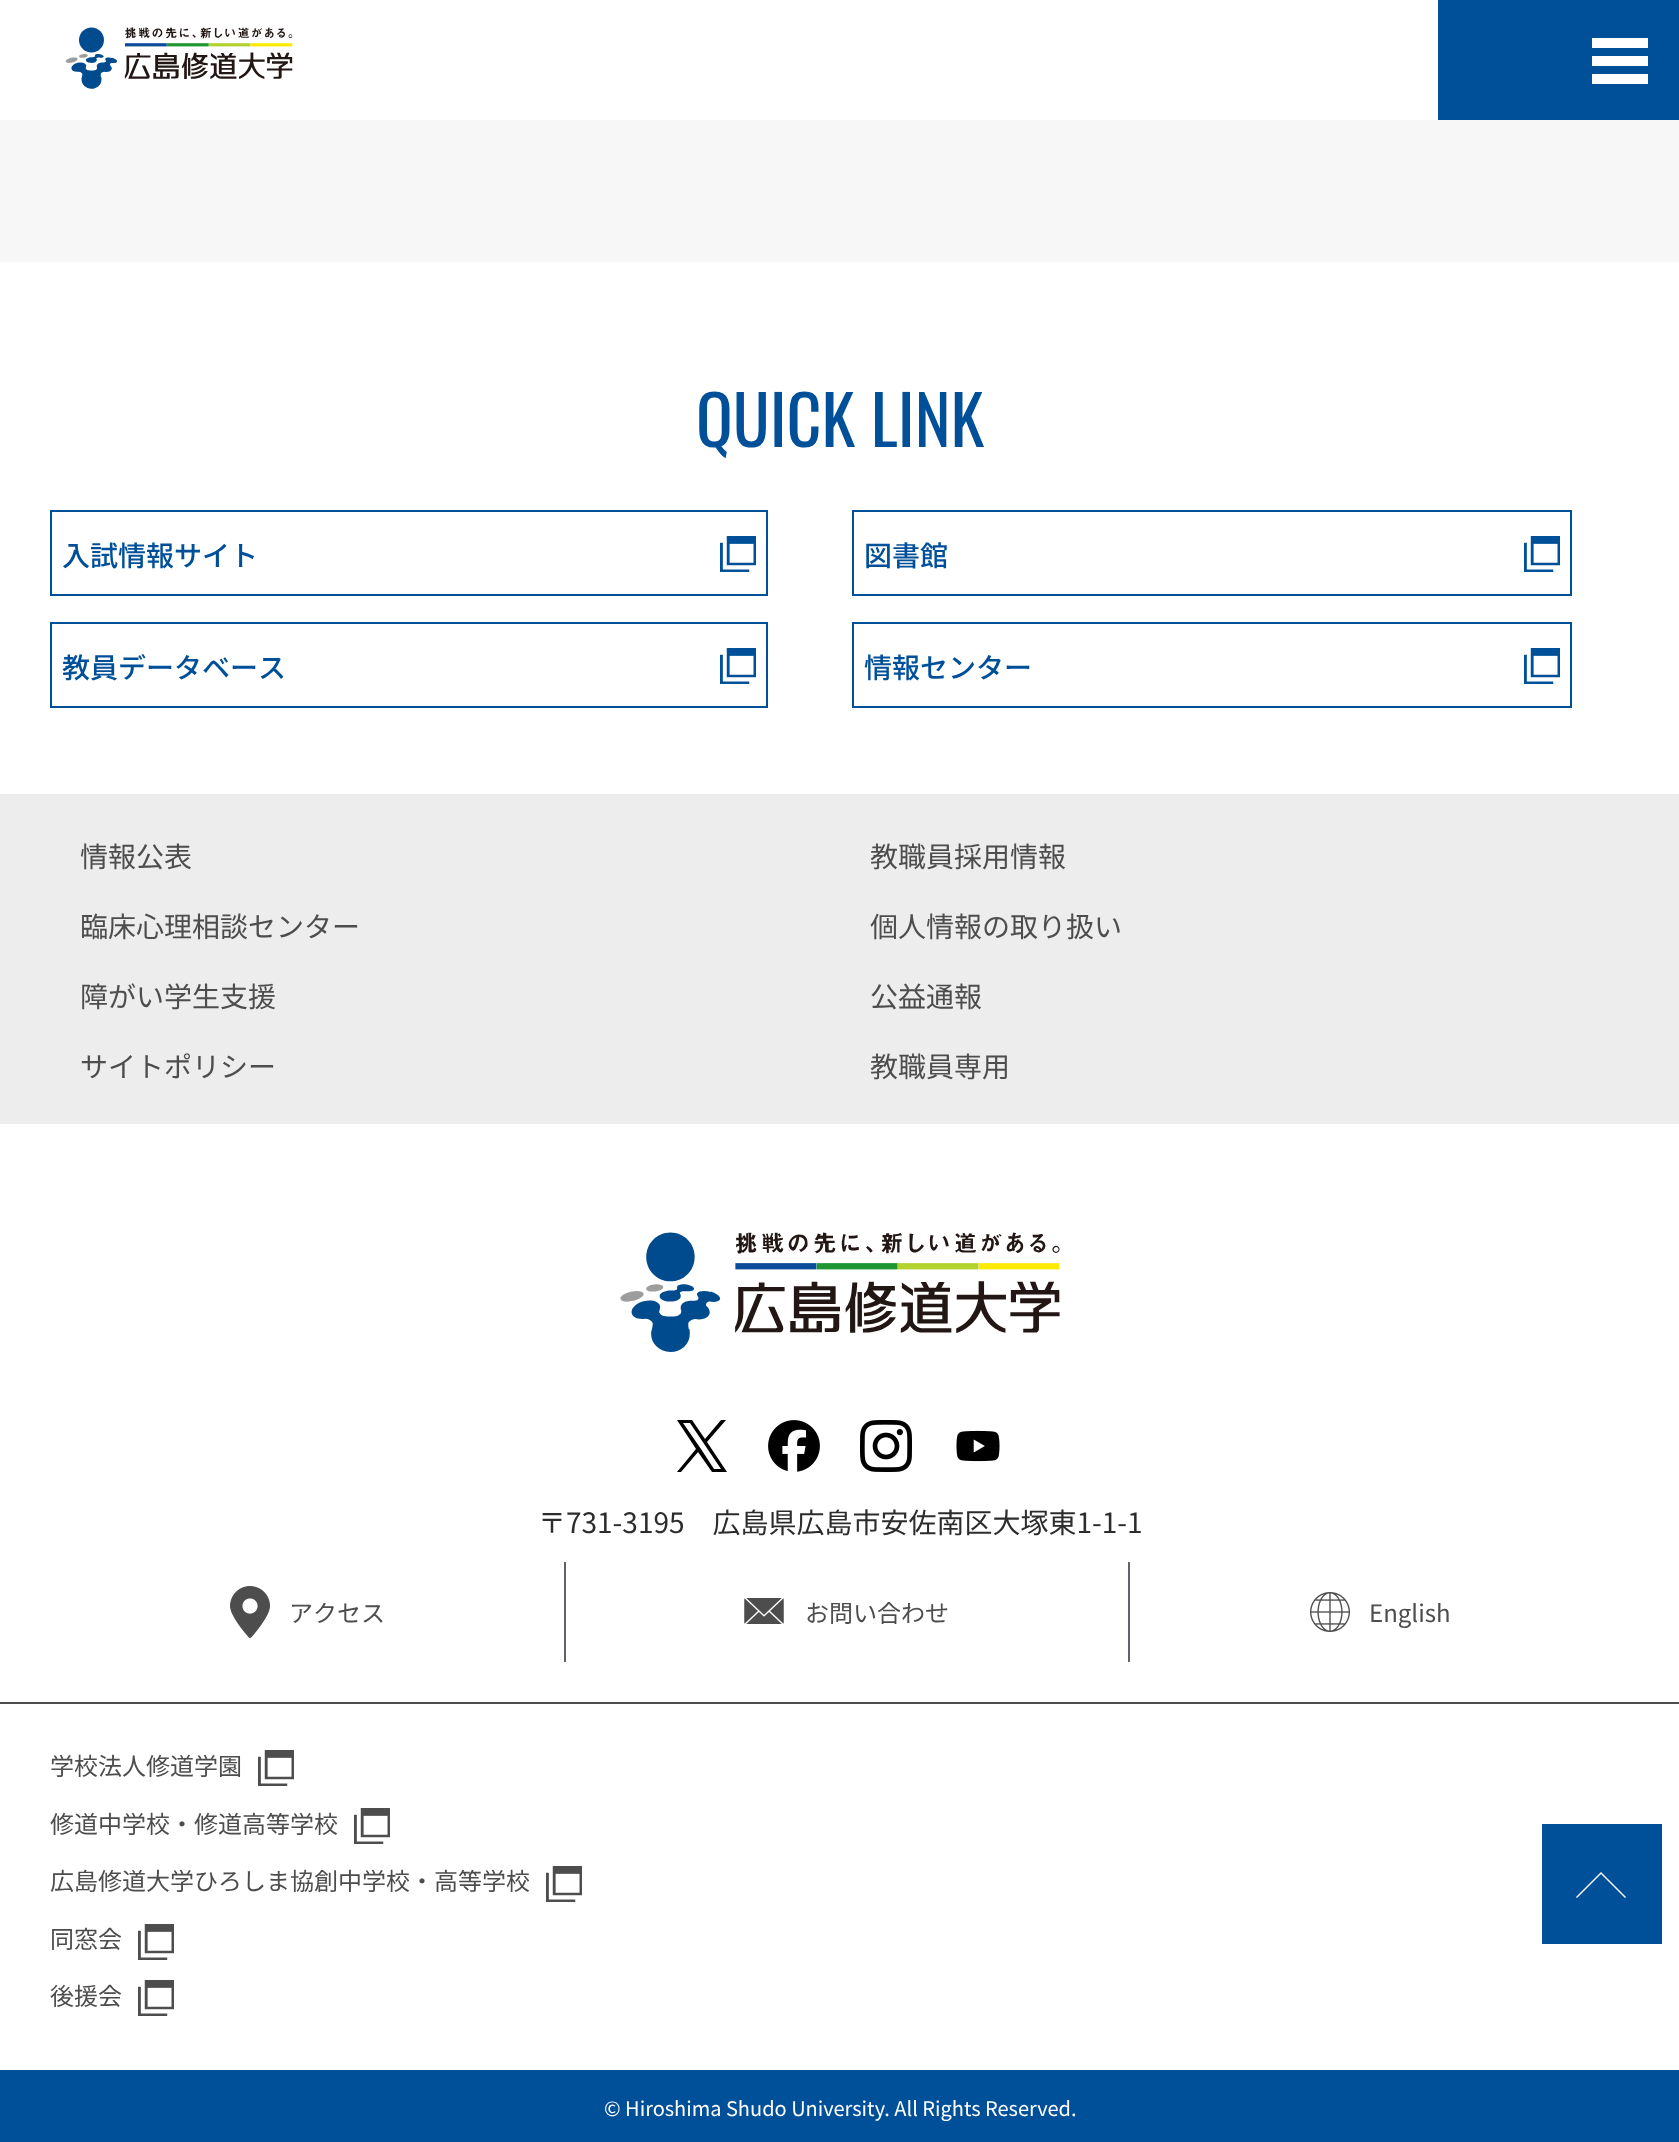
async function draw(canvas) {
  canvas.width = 1679
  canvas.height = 2142
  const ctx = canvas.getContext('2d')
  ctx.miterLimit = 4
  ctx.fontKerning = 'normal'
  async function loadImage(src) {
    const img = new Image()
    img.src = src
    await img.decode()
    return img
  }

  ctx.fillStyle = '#fff'
  ctx.fillRect(0, 0, 1679, 2142)
  ctx.drawImage(await loadImage('image0.png'), 65, 27, 228, 62)
  ctx.fillStyle = '#004f99'
  ctx.fillRect(1438, 0, 241, 120)
  ctx.fillStyle = '#fff'
  ctx.fillRect(1592, 38, 56, 10)
  ctx.fillRect(1592, 56, 56, 10)
  ctx.fillRect(1592, 74, 56, 10)
  ctx.fillStyle = '#f7f7f7'
  ctx.fillRect(0, 120, 1679, 142)
  ctx.font = '68px Oswald'
  ctx.fillStyle = '#004f99'
  ctx.fillText('QUICK LINK', 696, 447)
  ctx.strokeStyle = '#004f99'
  ctx.lineWidth = 2
  ctx.strokeRect(51, 511, 716, 84)
  ctx.font = '500 28px Noto Sans JP'
  ctx.fillText('入試情報サイト', 62, 566)
  ctx.drawImage(await loadImage('image1.png'), 720, 536, 36, 36)
  ctx.strokeRect(853, 511, 718, 84)
  ctx.fillText('図書館', 864, 566)
  ctx.drawImage(await loadImage('image1.png'), 1524, 536, 36, 36)
  ctx.strokeRect(51, 623, 716, 84)
  ctx.fillText('教員データベース', 62, 678)
  ctx.drawImage(await loadImage('image1.png'), 720, 648, 36, 36)
  ctx.strokeRect(853, 623, 718, 84)
  ctx.fillText('情報センター', 864, 678)
  ctx.drawImage(await loadImage('image1.png'), 1524, 648, 36, 36)
  ctx.fillStyle = '#ededed'
  ctx.fillRect(0, 794, 1679, 330)
  ctx.font = '28px Noto Sans JP'
  ctx.fillStyle = '#4d4d4d'
  ctx.fillText('情報公表', 80, 867)
  ctx.fillText('教職員採用情報', 870, 867)
  ctx.fillText('臨床心理相談センター', 80, 937)
  ctx.fillText('個人情報の取り扱い', 870, 937)
  ctx.fillText('障がい学生支援', 80, 1007)
  ctx.fillText('公益通報', 870, 1007)
  ctx.fillText('サイトポリシー', 80, 1077)
  ctx.fillText('教職員専用', 870, 1077)
  ctx.drawImage(await loadImage('image2.png'), 620, 1232, 440, 120)
  ctx.fillStyle = '#000'
  ctx.beginPath()
  ctx.moveTo(707, 1442)
  ctx.lineTo(726, 1420)
  ctx.lineTo(721, 1420)
  ctx.lineTo(705, 1439)
  ctx.lineTo(692, 1420)
  ctx.lineTo(677, 1420)
  ctx.lineTo(696, 1449)
  ctx.lineTo(677, 1472)
  ctx.lineTo(681, 1472)
  ctx.lineTo(698, 1452)
  ctx.lineTo(712, 1472)
  ctx.lineTo(727, 1472)
  ctx.closePath()
  ctx.moveTo(701, 1449)
  ctx.lineTo(683, 1423)
  ctx.lineTo(690, 1423)
  ctx.lineTo(721, 1469)
  ctx.lineTo(714, 1469)
  ctx.closePath()
  ctx.fill()
  ctx.drawImage(await loadImage('image3.png'), 768, 1420, 52, 52)
  ctx.drawImage(await loadImage('image4.png'), 860, 1420, 52, 52)
  ctx.drawImage(await loadImage('image5.png'), 956, 1430, 44, 32)
  ctx.fillStyle = '#2c2c2c'
  ctx.fillText('〒731-3195　広島県広島市安佐南区大塚東1-1-1', 538, 1533)
  ctx.fillStyle = '#60636b'
  ctx.fillRect(564, 1562, 2, 100)
  ctx.drawImage(await loadImage('image6.png'), 230, 1586, 40, 52)
  ctx.font = '24px Noto Sans JP'
  ctx.fillStyle = '#4d4d4d'
  ctx.fillText('アクセス', 289, 1622)
  ctx.fillStyle = '#60636b'
  ctx.fillRect(1128, 1562, 2, 100)
  ctx.drawImage(await loadImage('image7.png'), 744, 1598, 40, 26)
  ctx.fillStyle = '#4d4d4d'
  ctx.fillText('お問い合わせ', 805, 1622)
  ctx.drawImage(await loadImage('image8.png'), 1310, 1592, 40, 40)
  ctx.fillText('English', 1369, 1622)
  ctx.fillRect(0, 1702, 1679, 2)
  ctx.fillText('学校法人修道学園', 50, 1775)
  ctx.drawImage(await loadImage('image9.png'), 258, 1750, 36, 36)
  ctx.fillText('修道中学校・修道高等学校', 50, 1833)
  ctx.drawImage(await loadImage('image9.png'), 354, 1808, 36, 36)
  ctx.fillText('広島修道大学ひろしま協創中学校・高等学校', 50, 1890)
  ctx.drawImage(await loadImage('image9.png'), 546, 1866, 36, 36)
  ctx.fillText('同窓会', 50, 1948)
  ctx.drawImage(await loadImage('image9.png'), 138, 1924, 36, 36)
  ctx.fillText('後援会', 50, 2005)
  ctx.drawImage(await loadImage('image9.png'), 138, 1980, 36, 36)
  ctx.fillStyle = '#004f99'
  ctx.fillRect(1542, 1824, 120, 120)
  ctx.fillStyle = '#fff'
  ctx.beginPath()
  ctx.moveTo(1625, 1898)
  ctx.lineTo(1601, 1874)
  ctx.lineTo(1577, 1898)
  ctx.lineTo(1576, 1897)
  ctx.lineTo(1601, 1872)
  ctx.lineTo(1626, 1897)
  ctx.closePath()
  ctx.fill()
  ctx.fillStyle = '#004f99'
  ctx.fillRect(0, 2070, 1679, 72)
  ctx.font = '20px Noto Sans JP'
  ctx.fillStyle = '#fff'
  ctx.fillText('© Hiroshima Shudo University. All Rights Reserved.', 604, 2116)
}

draw(document.querySelector('canvas'))
